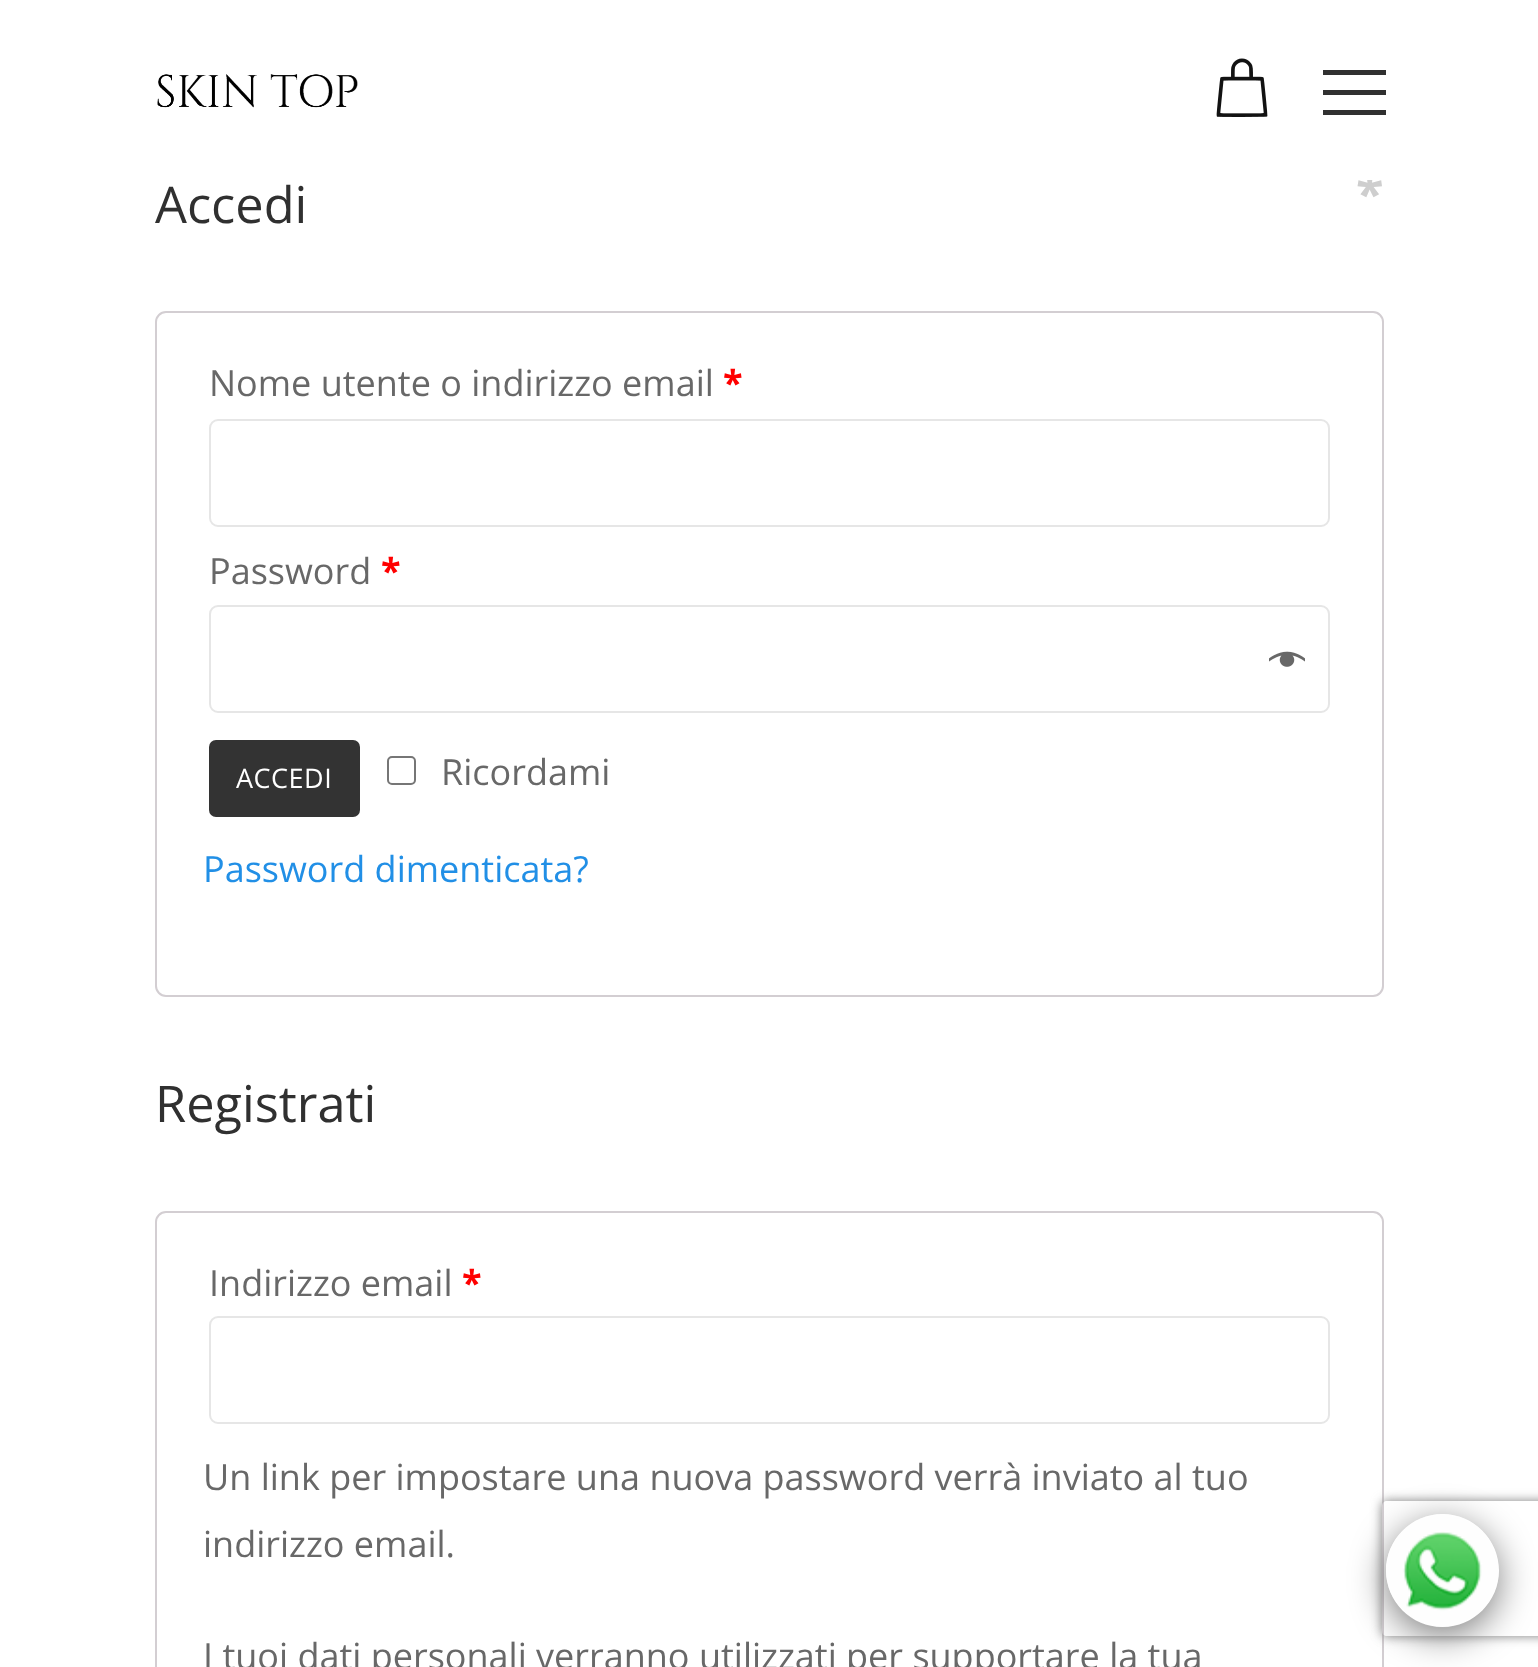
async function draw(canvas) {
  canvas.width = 1538
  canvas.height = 1667
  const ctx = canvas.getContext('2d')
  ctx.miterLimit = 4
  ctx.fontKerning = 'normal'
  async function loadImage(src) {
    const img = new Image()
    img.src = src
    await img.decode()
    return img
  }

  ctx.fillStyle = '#fff'
  ctx.fillRect(0, 0, 1538, 1667)
  ctx.font = 'bold 50.5px Open Sans'
  ctx.fillStyle = '#cecece'
  ctx.fillText('*', 1356, 212)
  ctx.fillStyle = '#fff'
  ctx.fillRect(1366, 173, 8, 7)
  ctx.drawImage(await loadImage('image0.png'), 157, 74, 201, 34)
  ctx.drawImage(await loadImage('image1.png'), 1216, 58, 52, 59)
  ctx.fillStyle = '#303030'
  ctx.fillRect(1323, 90, 63, 5)
  ctx.fillRect(1323, 70, 63, 5)
  ctx.fillRect(1323, 110, 63, 5)
  ctx.beginPath()
  ctx.roundRect(156, 312, 1227, 684, 10)
  ctx.strokeStyle = '#d3ced2'
  ctx.lineWidth = 2
  ctx.stroke()
  ctx.font = '36px Open Sans'
  ctx.fillStyle = '#686868'
  ctx.fillText('Nome utente o indirizzo email', 209, 396)
  ctx.font = 'bold 36px Open Sans'
  ctx.fillStyle = '#f00'
  ctx.fillText('*', 723, 396)
  ctx.beginPath()
  ctx.roundRect(210, 420, 1119, 106, 8)
  ctx.strokeStyle = '#e6e6e6'
  ctx.stroke()
  ctx.font = '36px Open Sans'
  ctx.fillStyle = '#686868'
  ctx.fillText('Password', 209, 584)
  ctx.font = 'bold 36px Open Sans'
  ctx.fillStyle = '#f00'
  ctx.fillText('*', 381, 584)
  ctx.beginPath()
  ctx.roundRect(210, 606, 1119, 106, 8)
  ctx.stroke()
  ctx.drawImage(await loadImage('image2.png'), 1269, 651, 36, 16)
  ctx.fillStyle = '#333'
  ctx.beginPath()
  ctx.roundRect(209, 740, 151, 77, 7)
  ctx.fill()
  ctx.letterSpacing = '0.5px'
  ctx.font = '27px Open Sans'
  ctx.fillStyle = '#fff'
  ctx.fillText('ACCEDI', 236, 788)
  ctx.beginPath()
  ctx.roundRect(388, 757, 27, 27, 4)
  ctx.strokeStyle = '#767676'
  ctx.stroke()
  ctx.letterSpacing = '0px'
  ctx.font = '36px Open Sans'
  ctx.fillStyle = '#686868'
  ctx.fillText('Ricordami', 441, 785)
  ctx.fillStyle = '#218fe6'
  ctx.fillText('Password dimenticata?', 203, 882)
  ctx.font = '50.5px Open Sans'
  ctx.fillStyle = '#303030'
  ctx.fillText('Accedi', 155, 223)
  ctx.fillText('Registrati', 155, 1122)
  ctx.beginPath()
  ctx.roundRect(156, 1212, 1227, 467, 10)
  ctx.strokeStyle = '#d3ced2'
  ctx.stroke()
  ctx.font = '36px Open Sans'
  ctx.fillStyle = '#686868'
  ctx.fillText('Indirizzo email', 209, 1296)
  ctx.font = 'bold 36px Open Sans'
  ctx.fillStyle = '#f00'
  ctx.fillText('*', 462, 1296)
  ctx.beginPath()
  ctx.roundRect(210, 1317, 1119, 106, 8)
  ctx.strokeStyle = '#e6e6e6'
  ctx.stroke()
  ctx.font = '36px Open Sans'
  ctx.fillStyle = '#686868'
  ctx.fillText('Un link per impostare una nuova password verrà inviato al tuo', 203, 1490)
  ctx.fillText('indirizzo email.', 203, 1557)
  ctx.fillText('I tuoi dati personali verranno utilizzati per supportare la tua', 203, 1669)
  ctx.save()
  ctx.beginPath()
  ctx.moveTo(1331, 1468)
  ctx.lineTo(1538, 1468)
  ctx.lineTo(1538, 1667)
  ctx.lineTo(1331, 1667)
  ctx.closePath()
  ctx.moveTo(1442.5, 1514)
  ctx.bezierCurveTo(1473.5, 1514, 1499, 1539.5, 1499, 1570.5)
  ctx.bezierCurveTo(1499, 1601.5, 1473.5, 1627, 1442.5, 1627)
  ctx.bezierCurveTo(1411.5, 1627, 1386, 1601.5, 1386, 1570.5)
  ctx.bezierCurveTo(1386, 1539.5, 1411.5, 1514, 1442.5, 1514)
  ctx.closePath()
  ctx.clip('evenodd')
  ctx.fillStyle = '#00000080'
  ctx.filter = 'blur(18px)'
  ctx.beginPath()
  ctx.roundRect(1386, 1523, 113, 113, 56.5)
  ctx.fill()
  ctx.filter = 'none'
  ctx.restore()
  ctx.save()
  ctx.beginPath()
  ctx.moveTo(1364, 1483)
  ctx.lineTo(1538, 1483)
  ctx.lineTo(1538, 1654)
  ctx.lineTo(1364, 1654)
  ctx.closePath()
  ctx.moveTo(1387, 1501)
  ctx.lineTo(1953, 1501)
  ctx.bezierCurveTo(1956, 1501, 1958, 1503, 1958, 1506)
  ctx.lineTo(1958, 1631)
  ctx.bezierCurveTo(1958, 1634, 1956, 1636, 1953, 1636)
  ctx.lineTo(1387, 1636)
  ctx.bezierCurveTo(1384, 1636, 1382, 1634, 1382, 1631)
  ctx.lineTo(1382, 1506)
  ctx.bezierCurveTo(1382, 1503, 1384, 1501, 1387, 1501)
  ctx.closePath()
  ctx.clip('evenodd')
  ctx.fillStyle = '#808080'
  ctx.filter = 'blur(5.5px)'
  ctx.beginPath()
  ctx.roundRect(1382, 1501, 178, 135, 5)
  ctx.fill()
  ctx.filter = 'none'
  ctx.restore()
  ctx.drawImage(await loadImage('image3.png'), 1386, 1514, 113, 114)
}

draw(document.querySelector('canvas'))
